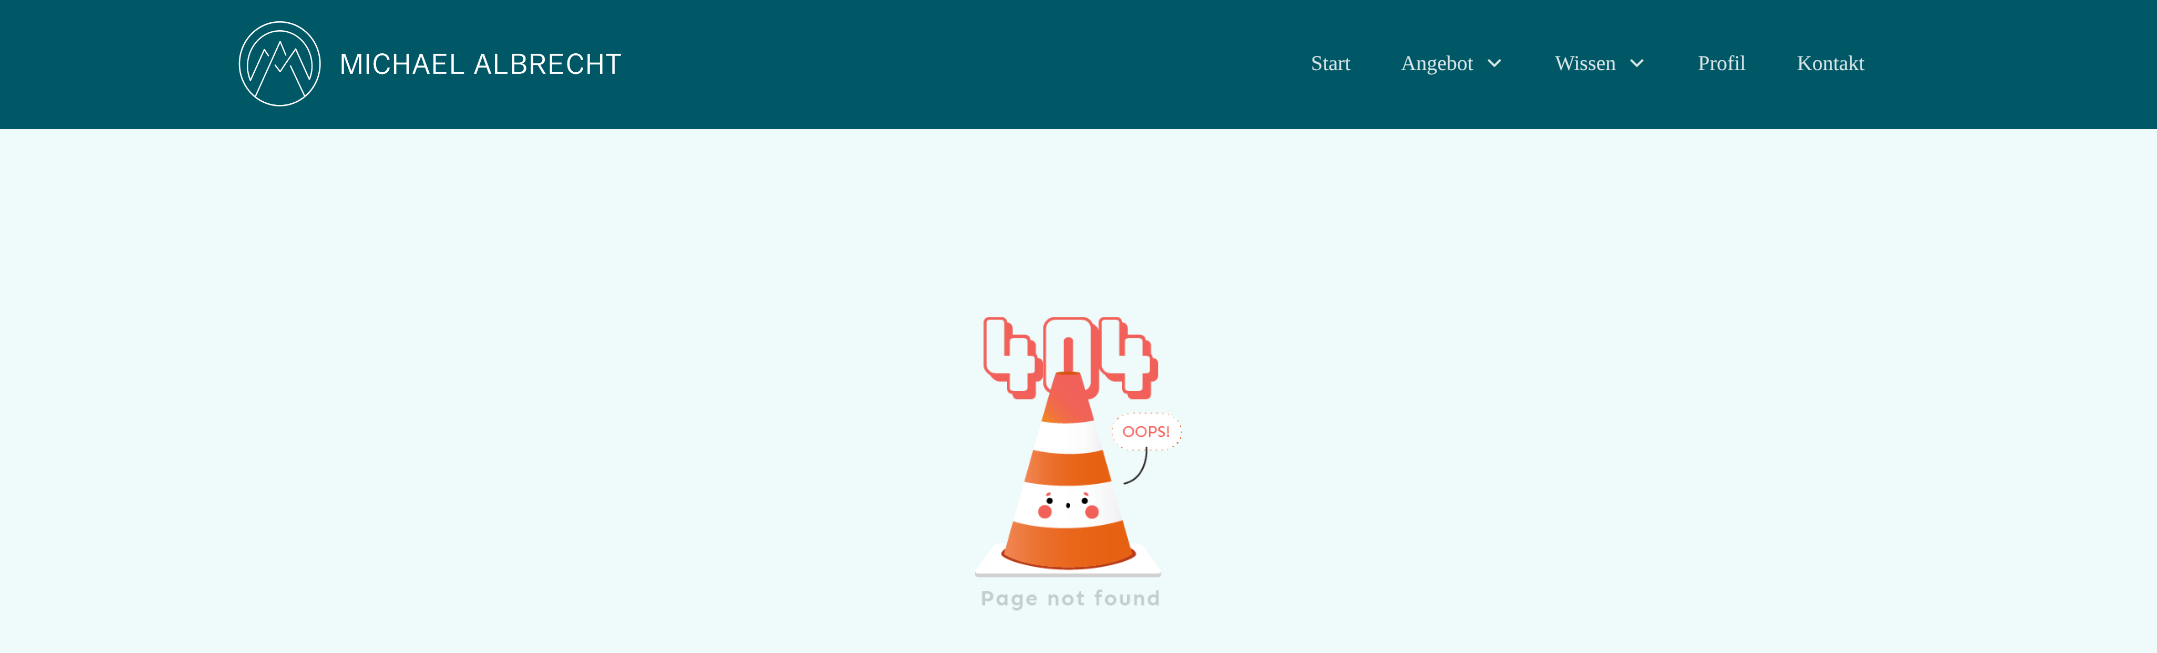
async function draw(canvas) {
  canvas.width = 2157
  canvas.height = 653
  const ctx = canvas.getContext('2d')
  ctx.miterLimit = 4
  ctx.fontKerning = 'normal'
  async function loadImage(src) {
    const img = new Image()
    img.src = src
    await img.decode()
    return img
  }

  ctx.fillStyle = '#effafb'
  ctx.fillRect(0, 0, 2157, 653)
  ctx.fillStyle = '#005866'
  ctx.fillRect(0, 0, 2157, 129)
  ctx.drawImage(await loadImage('image0.png'), 238, 21, 383, 86)
  ctx.font = '21px Liberation Serif'
  ctx.fillStyle = '#d9e6e8'
  ctx.fillText('Start', 1311, 70)
  ctx.fillText('Angebot', 1401, 70)
  ctx.drawImage(await loadImage('image1.png'), 1487, 59, 14, 8)
  ctx.fillText('Wissen', 1555, 70)
  ctx.drawImage(await loadImage('image2.png'), 1630, 59, 14, 8)
  ctx.fillText('Profil', 1698, 70)
  ctx.fillText('Kontakt', 1797, 70)
  ctx.drawImage(await loadImage('image3.png'), 975, 317, 207, 294)
}

draw(document.querySelector('canvas'))
